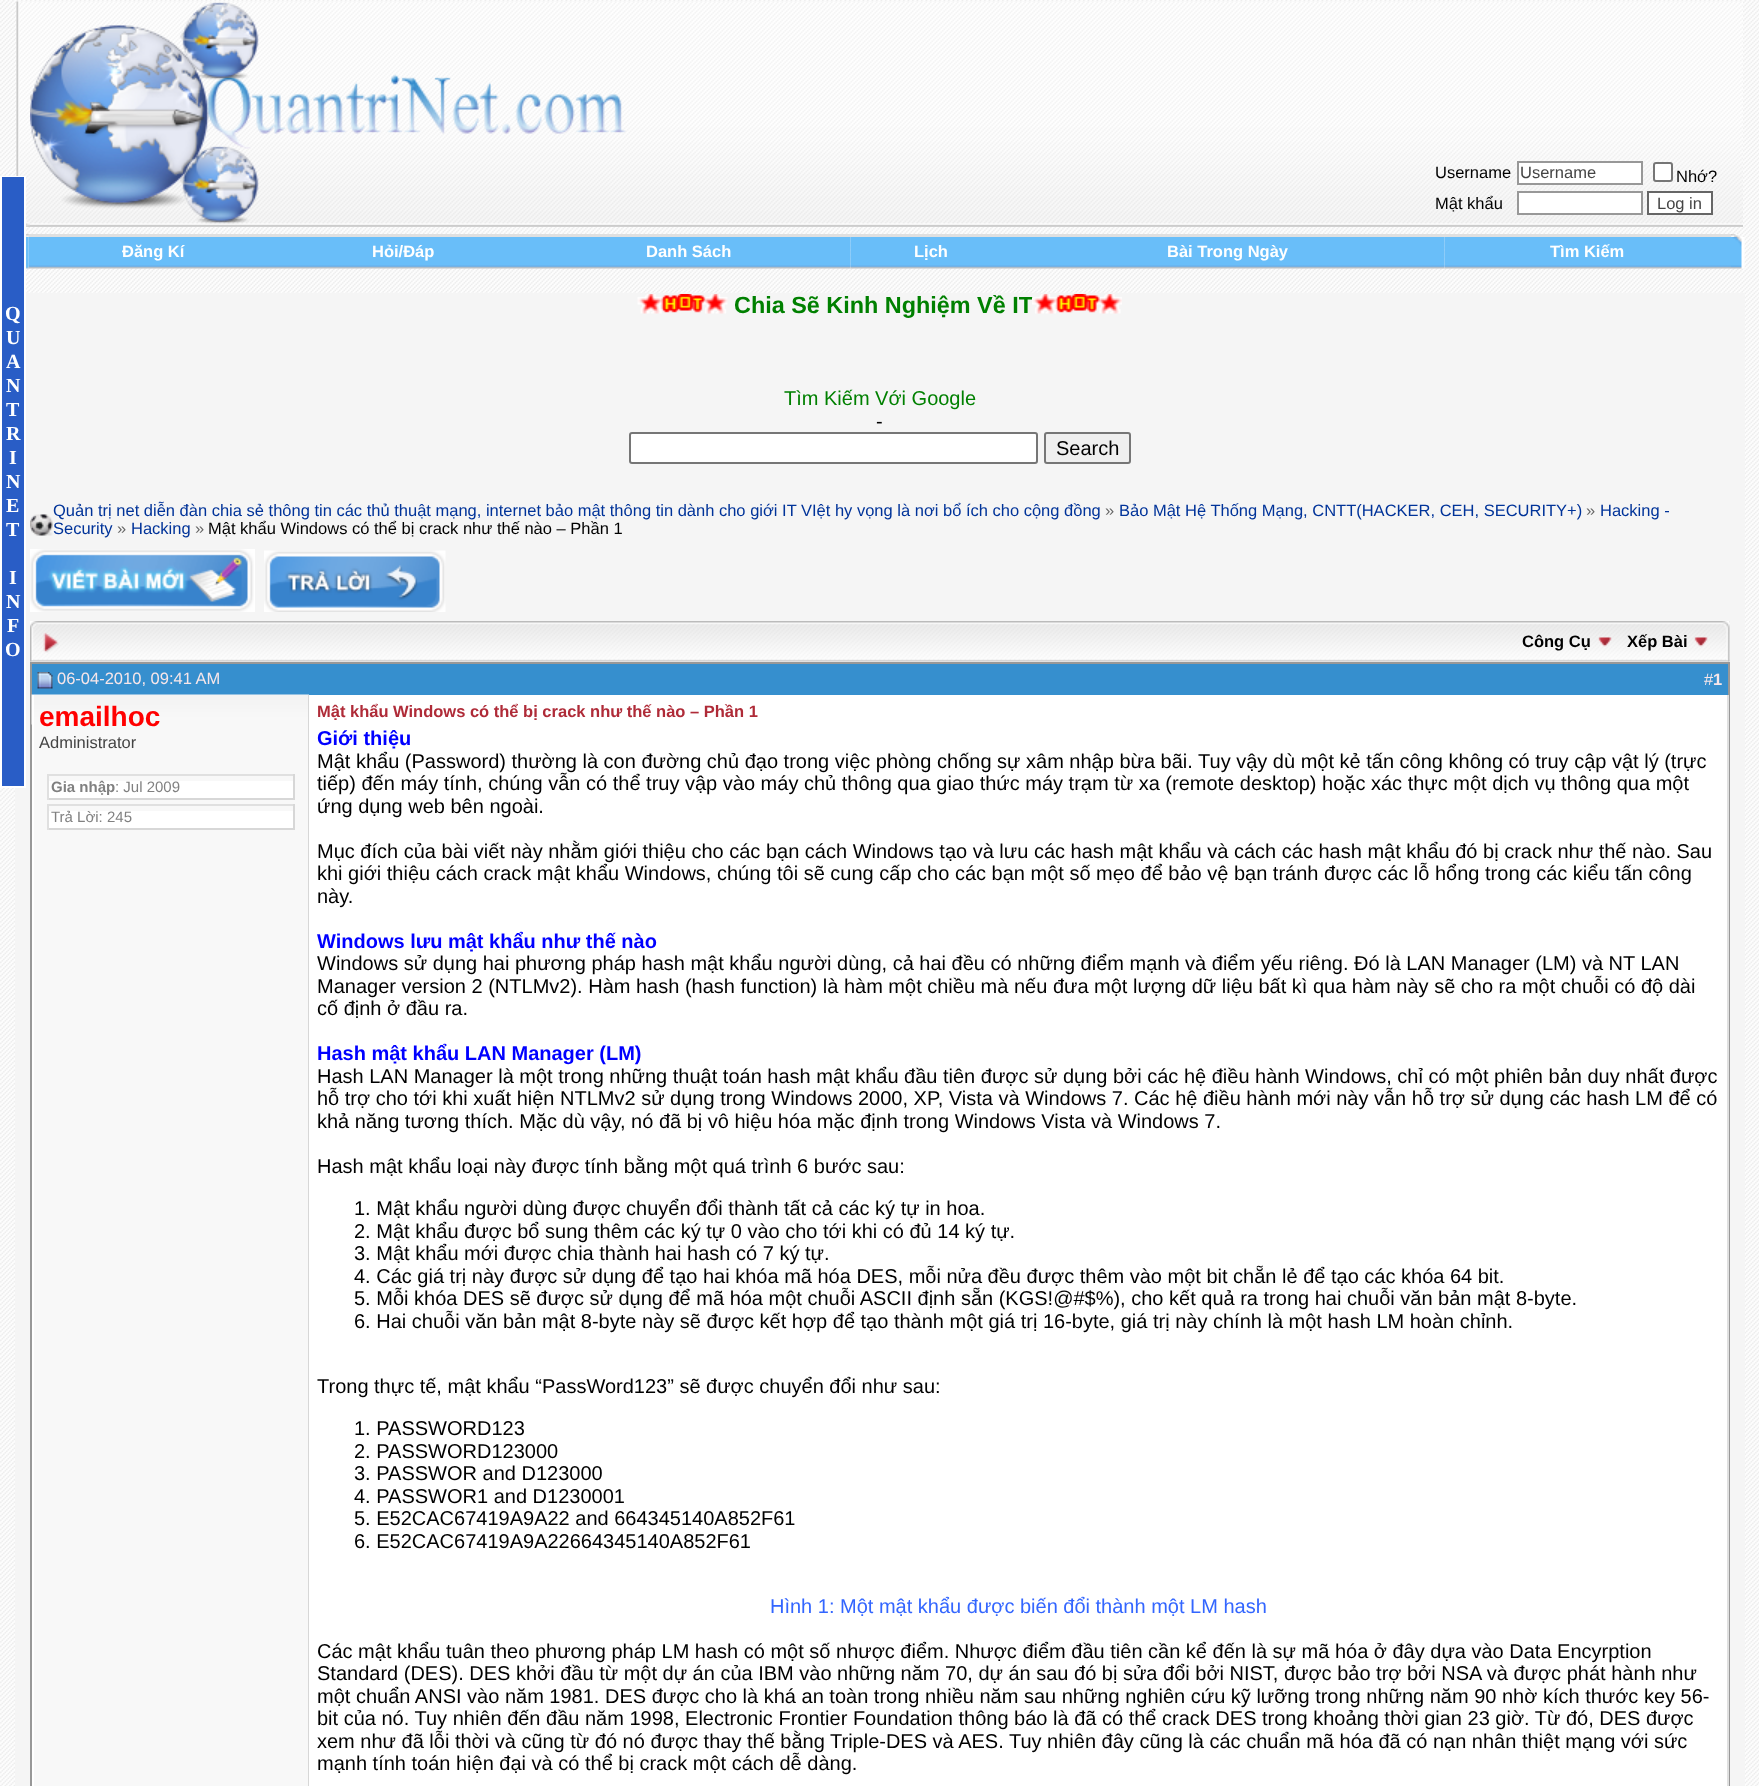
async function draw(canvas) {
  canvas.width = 1759
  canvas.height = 1786
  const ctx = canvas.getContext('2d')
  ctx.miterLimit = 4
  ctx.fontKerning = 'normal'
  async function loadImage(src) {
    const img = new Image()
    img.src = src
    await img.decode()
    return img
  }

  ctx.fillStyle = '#fff'
  ctx.fillRect(0, 0, 1759, 1786)
  ctx.drawImage(await loadImage('image0.png'), 0, 0, 1759, 1786)
  ctx.fillStyle = '#e0e0e0'
  ctx.fillRect(26, 226, 1717, 1)
  ctx.drawImage(await loadImage('image1.png'), 16, 1, 1727, 226)
  ctx.drawImage(await loadImage('image2.png'), 16, 1, 14, 226)
  ctx.drawImage(await loadImage('image3.png'), 30, 2, 596, 222)
  ctx.font = '16.5px Liberation Sans'
  ctx.fillStyle = '#000'
  ctx.fillText('Username', 1435, 178)
  ctx.fillStyle = '#fff'
  ctx.beginPath()
  ctx.rect(1518, 162, 124, 22)
  ctx.fill()
  ctx.strokeStyle = '#989898'
  ctx.lineWidth = 2
  ctx.stroke()
  ctx.fillStyle = '#444'
  ctx.fillText('Username', 1520, 178)
  ctx.fillStyle = '#fff'
  ctx.beginPath()
  ctx.roundRect(1654, 163, 18, 18, 2)
  ctx.fill()
  ctx.strokeStyle = '#767676'
  ctx.stroke()
  ctx.fillStyle = '#000'
  ctx.fillText('Nhớ?', 1676, 182)
  ctx.fillText('Mật khẩu', 1435, 209)
  ctx.fillStyle = '#fff'
  ctx.beginPath()
  ctx.rect(1518, 192, 124, 22)
  ctx.fill()
  ctx.strokeStyle = '#989898'
  ctx.stroke()
  ctx.beginPath()
  ctx.rect(1648, 192, 64, 22)
  ctx.fill()
  ctx.strokeStyle = '#666'
  ctx.stroke()
  ctx.fillStyle = '#444'
  ctx.fillText('Log in', 1657, 209)
  ctx.fillStyle = '#e0e0e0'
  ctx.fillRect(28, 234, 1703, 3)
  ctx.drawImage(await loadImage('image4.png'), 26, 234, 3, 3)
  ctx.drawImage(await loadImage('image5.png'), 1731, 234, 8, 3)
  ctx.drawImage(await loadImage('image7.png'), 28, 237, 251, 32)
  ctx.drawImage(await loadImage('image6.png'), 26, 237, 3, 32)
  ctx.font = 'bold 16.5px Liberation Sans'
  ctx.fillStyle = '#fff'
  ctx.fillText('Đăng Kí', 122, 257)
  ctx.drawImage(await loadImage('image8.png'), 279, 237, 249, 32)
  ctx.fillText('Hỏi/Đáp', 372, 257)
  ctx.drawImage(await loadImage('image9.png'), 528, 237, 323, 32)
  ctx.fillText('Danh Sách', 646, 257)
  ctx.drawImage(await loadImage('image10.png'), 850, 237, 161, 32)
  ctx.fillText('Lịch', 914, 257)
  ctx.drawImage(await loadImage('image11.png'), 1011, 237, 434, 32)
  ctx.fillText('Bài Trong Ngày', 1167, 257)
  ctx.drawImage(await loadImage('image12.png'), 1444, 237, 287, 32)
  ctx.fillText('Tìm Kiếm', 1550, 257)
  ctx.drawImage(await loadImage('image13.png'), 1731, 237, 14, 32)
  ctx.fillStyle = '#f5f5f5'
  ctx.fillRect(15, 662, 1730, 1124)
  ctx.fillStyle = '#fff'
  ctx.fillRect(0, 176, 26, 612)
  ctx.fillStyle = '#295dc6'
  ctx.fillRect(2, 177, 22, 609)
  ctx.font = 'bold 20px Liberation Serif'
  ctx.fillStyle = '#fff'
  ctx.fillText('Q', 5, 320)
  ctx.fillText('U', 6, 344)
  ctx.fillText('A', 6, 368)
  ctx.fillText('N', 6, 392)
  ctx.fillText('T', 6, 416)
  ctx.fillText('R', 6, 440)
  ctx.fillText('I', 9, 464)
  ctx.fillText('N', 6, 488)
  ctx.fillText('E', 6, 512)
  ctx.fillText('T', 6, 536)
  ctx.fillText('I', 9, 584)
  ctx.fillText('N', 6, 608)
  ctx.fillText('F', 7, 632)
  ctx.fillText('O', 5, 656)
  ctx.fillStyle = '#f5f5f5'
  ctx.fillRect(26, 293, 1719, 369)
  ctx.drawImage(await loadImage('image14.png'), 637, 294, 91, 20)
  ctx.font = 'bold 23.4px Liberation Sans'
  ctx.fillStyle = '#008000'
  ctx.fillText('Chia Sẽ Kinh Nghiệm Về IT', 734, 313)
  ctx.drawImage(await loadImage('image15.png'), 1032, 294, 90, 20)
  ctx.font = '20px Liberation Sans'
  ctx.fillText('Tìm Kiếm Với Google', 784, 405)
  ctx.fillStyle = '#000'
  ctx.fillText('-', 876, 428)
  ctx.fillStyle = '#fff'
  ctx.beginPath()
  ctx.roundRect(630, 433, 407, 30, 2)
  ctx.fill()
  ctx.strokeStyle = '#767676'
  ctx.stroke()
  ctx.fillStyle = '#efefef'
  ctx.beginPath()
  ctx.roundRect(1045, 433, 85, 30, 2)
  ctx.fill()
  ctx.stroke()
  ctx.fillStyle = '#000'
  ctx.fillText('Search', 1056, 455)
  ctx.drawImage(await loadImage('image16.png'), 30, 514, 23, 22)
  ctx.font = '16.5px Liberation Sans'
  ctx.fillStyle = '#039'
  ctx.fillText('Quản trị net diễn đàn chia sẻ thông tin các thủ thuật mạng, internet bảo mật thông tin dành cho giới IT VIệt hy vọng là nơi bổ ích cho cộng đồng', 53, 516)
  ctx.fillStyle = '#666'
  ctx.fillText('»', 1105, 516)
  ctx.fillStyle = '#039'
  ctx.fillText('Bảo Mật Hệ Thống Mạng, CNTT(HACKER, CEH, SECURITY+)', 1119, 516)
  ctx.fillStyle = '#666'
  ctx.fillText('»', 1586, 516)
  ctx.fillStyle = '#039'
  ctx.fillText('Hacking -', 1600, 516)
  ctx.fillText('Security', 53, 534)
  ctx.fillStyle = '#666'
  ctx.fillText('»', 117, 534)
  ctx.fillStyle = '#039'
  ctx.fillText('Hacking', 131, 534)
  ctx.fillStyle = '#666'
  ctx.fillText('»', 195, 534)
  ctx.fillStyle = '#000'
  ctx.fillText('Mật khẩu Windows có thể bị crack như thế nào – Phần 1', 208, 534)
  ctx.drawImage(await loadImage('image17.png'), 30, 549, 225, 63)
  ctx.drawImage(await loadImage('image18.png'), 264, 550, 182, 62)
  ctx.drawImage(await loadImage('image19.png'), 30, 621, 1700, 41)
  ctx.drawImage(await loadImage('image20.png'), 30, 621, 29, 41)
  ctx.font = 'bold 16.5px Liberation Sans'
  ctx.fillText('Công Cụ', 1522, 647)
  ctx.drawImage(await loadImage('image21.png'), 1598, 637, 14, 10)
  ctx.fillText('Xếp Bài', 1627, 647)
  ctx.drawImage(await loadImage('image22.png'), 1694, 637, 14, 10)
  ctx.drawImage(await loadImage('image23.png'), 1722, 621, 8, 41)
  ctx.fillStyle = '#368fce'
  ctx.fillRect(32, 664, 1696, 31)
  ctx.strokeStyle = '#989898'
  ctx.strokeRect(31, 663, 1698, 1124)
  ctx.drawImage(await loadImage('image24.png'), 37, 672, 16, 17)
  ctx.font = '16.5px Liberation Sans'
  ctx.fillStyle = '#f7e6e9'
  ctx.fillText('06-04-2010, 09:41 AM', 57, 684)
  ctx.fillText('#', 1704, 685)
  ctx.font = 'bold 16.5px Liberation Sans'
  ctx.fillText('1', 1713, 685)
  ctx.fillStyle = '#f8f8f8'
  ctx.fillRect(34, 724, 274, 1062)
  ctx.drawImage(await loadImage('image25.png'), 31, 694, 278, 31)
  ctx.fillStyle = '#d7d7d7'
  ctx.fillRect(308, 695, 1, 1091)
  ctx.fillStyle = '#fff'
  ctx.fillRect(32, 695, 2, 1091)
  ctx.font = 'bold 28px Liberation Sans'
  ctx.fillStyle = '#f00'
  ctx.fillText('emailhoc', 39, 726)
  ctx.font = '16.5px Liberation Sans'
  ctx.fillStyle = '#444'
  ctx.fillText('Administrator', 39, 748)
  ctx.fillStyle = '#fff'
  ctx.fillRect(49, 781, 244, 17)
  ctx.fillStyle = '#e0e0e0'
  ctx.fillRect(47, 774, 247, 2)
  ctx.fillStyle = '#d7d7d7'
  ctx.fillRect(293, 774, 2, 26)
  ctx.fillRect(47, 798, 247, 2)
  ctx.fillStyle = '#e0e0e0'
  ctx.fillRect(47, 774, 2, 26)
  ctx.font = 'bold 15px Liberation Sans'
  ctx.fillStyle = '#808080'
  ctx.fillText('Gia nhập', 51, 792)
  ctx.font = '15px Liberation Sans'
  ctx.fillText(': Jul 2009', 115, 792)
  ctx.fillStyle = '#fff'
  ctx.fillRect(49, 811, 244, 17)
  ctx.fillStyle = '#e0e0e0'
  ctx.fillRect(47, 804, 247, 2)
  ctx.fillStyle = '#d7d7d7'
  ctx.fillRect(293, 804, 2, 26)
  ctx.fillRect(47, 828, 247, 2)
  ctx.fillStyle = '#e0e0e0'
  ctx.fillRect(47, 804, 2, 26)
  ctx.fillStyle = '#808080'
  ctx.fillText('Trả Lời: 245', 51, 822)
  ctx.fillStyle = '#fff'
  ctx.fillRect(309, 695, 1418, 1091)
  ctx.fillStyle = '#e0e0e0'
  ctx.fillRect(1727, 695, 2, 1091)
  ctx.font = 'bold 16.5px Liberation Sans'
  ctx.fillStyle = '#af2b38'
  ctx.fillText('Mật khẩu Windows có thể bị crack như thế nào – Phần 1', 317, 717)
  ctx.font = 'bold 20px Liberation Sans'
  ctx.fillStyle = '#00f'
  ctx.fillText('Giới thiệu', 317, 745)
  ctx.font = '20px Liberation Sans'
  ctx.fillStyle = '#000'
  ctx.fillText('Mật khẩu (Password) thường là con đường chủ đạo trong việc phòng chống sự xâm nhập bừa bãi. Tuy vậy dù một kẻ tấn công không có truy cập vật lý (trực', 317, 768)
  ctx.fillText('tiếp) đến máy tính, chúng vẫn có thể truy vập vào máy chủ thông qua giao thức máy trạm từ xa (remote desktop) hoặc xác thực một dịch vụ thông qua một', 317, 790)
  ctx.fillText('ứng dụng web bên ngoài.', 317, 813)
  ctx.fillText('Mục đích của bài viết này nhằm giới thiệu cho các bạn cách Windows tạo và lưu các hash mật khẩu và cách các hash mật khẩu đó bị crack như thế nào. Sau', 317, 858)
  ctx.fillText('khi giới thiệu cách crack mật khẩu Windows, chúng tôi sẽ cung cấp cho các bạn một số mẹo để bảo vệ bạn tránh được các lỗ hổng trong các kiểu tấn công', 317, 880)
  ctx.fillText('này.', 317, 903)
  ctx.font = 'bold 20px Liberation Sans'
  ctx.fillStyle = '#00f'
  ctx.fillText('Windows lưu mật khẩu như thế nào', 317, 948)
  ctx.font = '20px Liberation Sans'
  ctx.fillStyle = '#000'
  ctx.fillText('Windows sử dụng hai phương pháp hash mật khẩu người dùng, cả hai đều có những điểm mạnh và điểm yếu riêng. Đó là LAN Manager (LM) và NT LAN', 317, 970)
  ctx.fillText('Manager version 2 (NTLMv2). Hàm hash (hash function) là hàm một chiều mà nếu đưa một lượng dữ liệu bất kì qua hàm này sẽ cho ra một chuỗi có độ dài', 317, 993)
  ctx.fillText('cố định ở đầu ra.', 317, 1015)
  ctx.font = 'bold 20px Liberation Sans'
  ctx.fillStyle = '#00f'
  ctx.fillText('Hash mật khẩu LAN Manager (LM)', 317, 1060)
  ctx.font = '20px Liberation Sans'
  ctx.fillStyle = '#000'
  ctx.fillText('Hash LAN Manager là một trong những thuật toán hash mật khẩu đầu tiên được sử dụng bởi các hệ điều hành Windows, chỉ có một phiên bản duy nhất được', 317, 1083)
  ctx.fillText('hỗ trợ cho tới khi xuất hiện NTLMv2 sử dụng trong Windows 2000, XP, Vista và Windows 7. Các hệ điều hành mới này vẫn hỗ trợ sử dụng các hash LM để có', 317, 1105)
  ctx.fillText('khả năng tương thích. Mặc dù vậy, nó đã bị vô hiệu hóa mặc định trong Windows Vista và Windows 7.', 317, 1128)
  ctx.fillText('Hash mật khẩu loại này được tính bằng một quá trình 6 bước sau:', 317, 1173)
  ctx.fillText('1. Mật khẩu người dùng được chuyển đổi thành tất cả các ký tự in hoa.', 354, 1215)
  ctx.fillText('2. Mật khẩu được bổ sung thêm các ký tự 0 vào cho tới khi có đủ 14 ký tự.', 354, 1238)
  ctx.fillText('3. Mật khẩu mới được chia thành hai hash có 7 ký tự.', 354, 1260)
  ctx.fillText('4. Các giá trị này được sử dụng để tạo hai khóa mã hóa DES, mỗi nửa đều được thêm vào một bit chẵn lẻ để tạo các khóa 64 bit.', 354, 1283)
  ctx.fillText('5. Mỗi khóa DES sẽ được sử dụng để mã hóa một chuỗi ASCII định sẵn (KGS!@#$%), cho kết quả ra trong hai chuỗi văn bản mật 8-byte.', 354, 1305)
  ctx.fillText('6. Hai chuỗi văn bản mật 8-byte này sẽ được kết hợp để tạo thành một giá trị 16-byte, giá trị này chính là một hash LM hoàn chỉnh.', 354, 1328)
  ctx.fillText('Trong thực tế, mật khẩu “PassWord123” sẽ được chuyển đổi như sau:', 317, 1393)
  ctx.fillText('1. PASSWORD123', 354, 1435)
  ctx.fillText('2. PASSWORD123000', 354, 1458)
  ctx.fillText('3. PASSWOR and D123000', 354, 1480)
  ctx.fillText('4. PASSWOR1 and D1230001', 354, 1503)
  ctx.fillText('5. E52CAC67419A9A22 and 664345140A852F61', 354, 1525)
  ctx.fillText('6. E52CAC67419A9A22664345140A852F61', 354, 1548)
  ctx.fillStyle = '#36f'
  ctx.fillText('Hình 1: Một mật khẩu được biến đổi thành một LM hash', 770, 1613)
  ctx.fillStyle = '#000'
  ctx.fillText('Các mật khẩu tuân theo phương pháp LM hash có một số nhược điểm. Nhược điểm đầu tiên cần kể đến là sự mã hóa ở đây dựa vào Data Encyrption', 317, 1658)
  ctx.fillText('Standard (DES). DES khởi đầu từ một dự án của IBM vào những năm 70, dự án sau đó bị sửa đổi bởi NIST, được bảo trợ bởi NSA và được phát hành như', 317, 1680)
  ctx.fillText('một chuẩn ANSI vào năm 1981. DES được cho là khá an toàn trong nhiều năm sau những nghiên cứu kỹ lưỡng trong những năm 90 nhờ kích thước key 56-', 317, 1703)
  ctx.fillText('bit của nó. Tuy nhiên đến đầu năm 1998, Electronic Frontier Foundation thông báo là đã có thể crack DES trong khoảng thời gian 23 giờ. Từ đó, DES được', 317, 1725)
  ctx.fillText('xem như đã lỗi thời và cũng từ đó nó được thay thế bằng Triple-DES và AES. Tuy nhiên đây cũng là các chuẩn mã hóa đã có nạn nhân thiệt mạng với sức', 317, 1748)
  ctx.fillText('mạnh tính toán hiện đại và có thể bị crack một cách dễ dàng.', 317, 1770)
}

draw(document.querySelector('canvas'))
